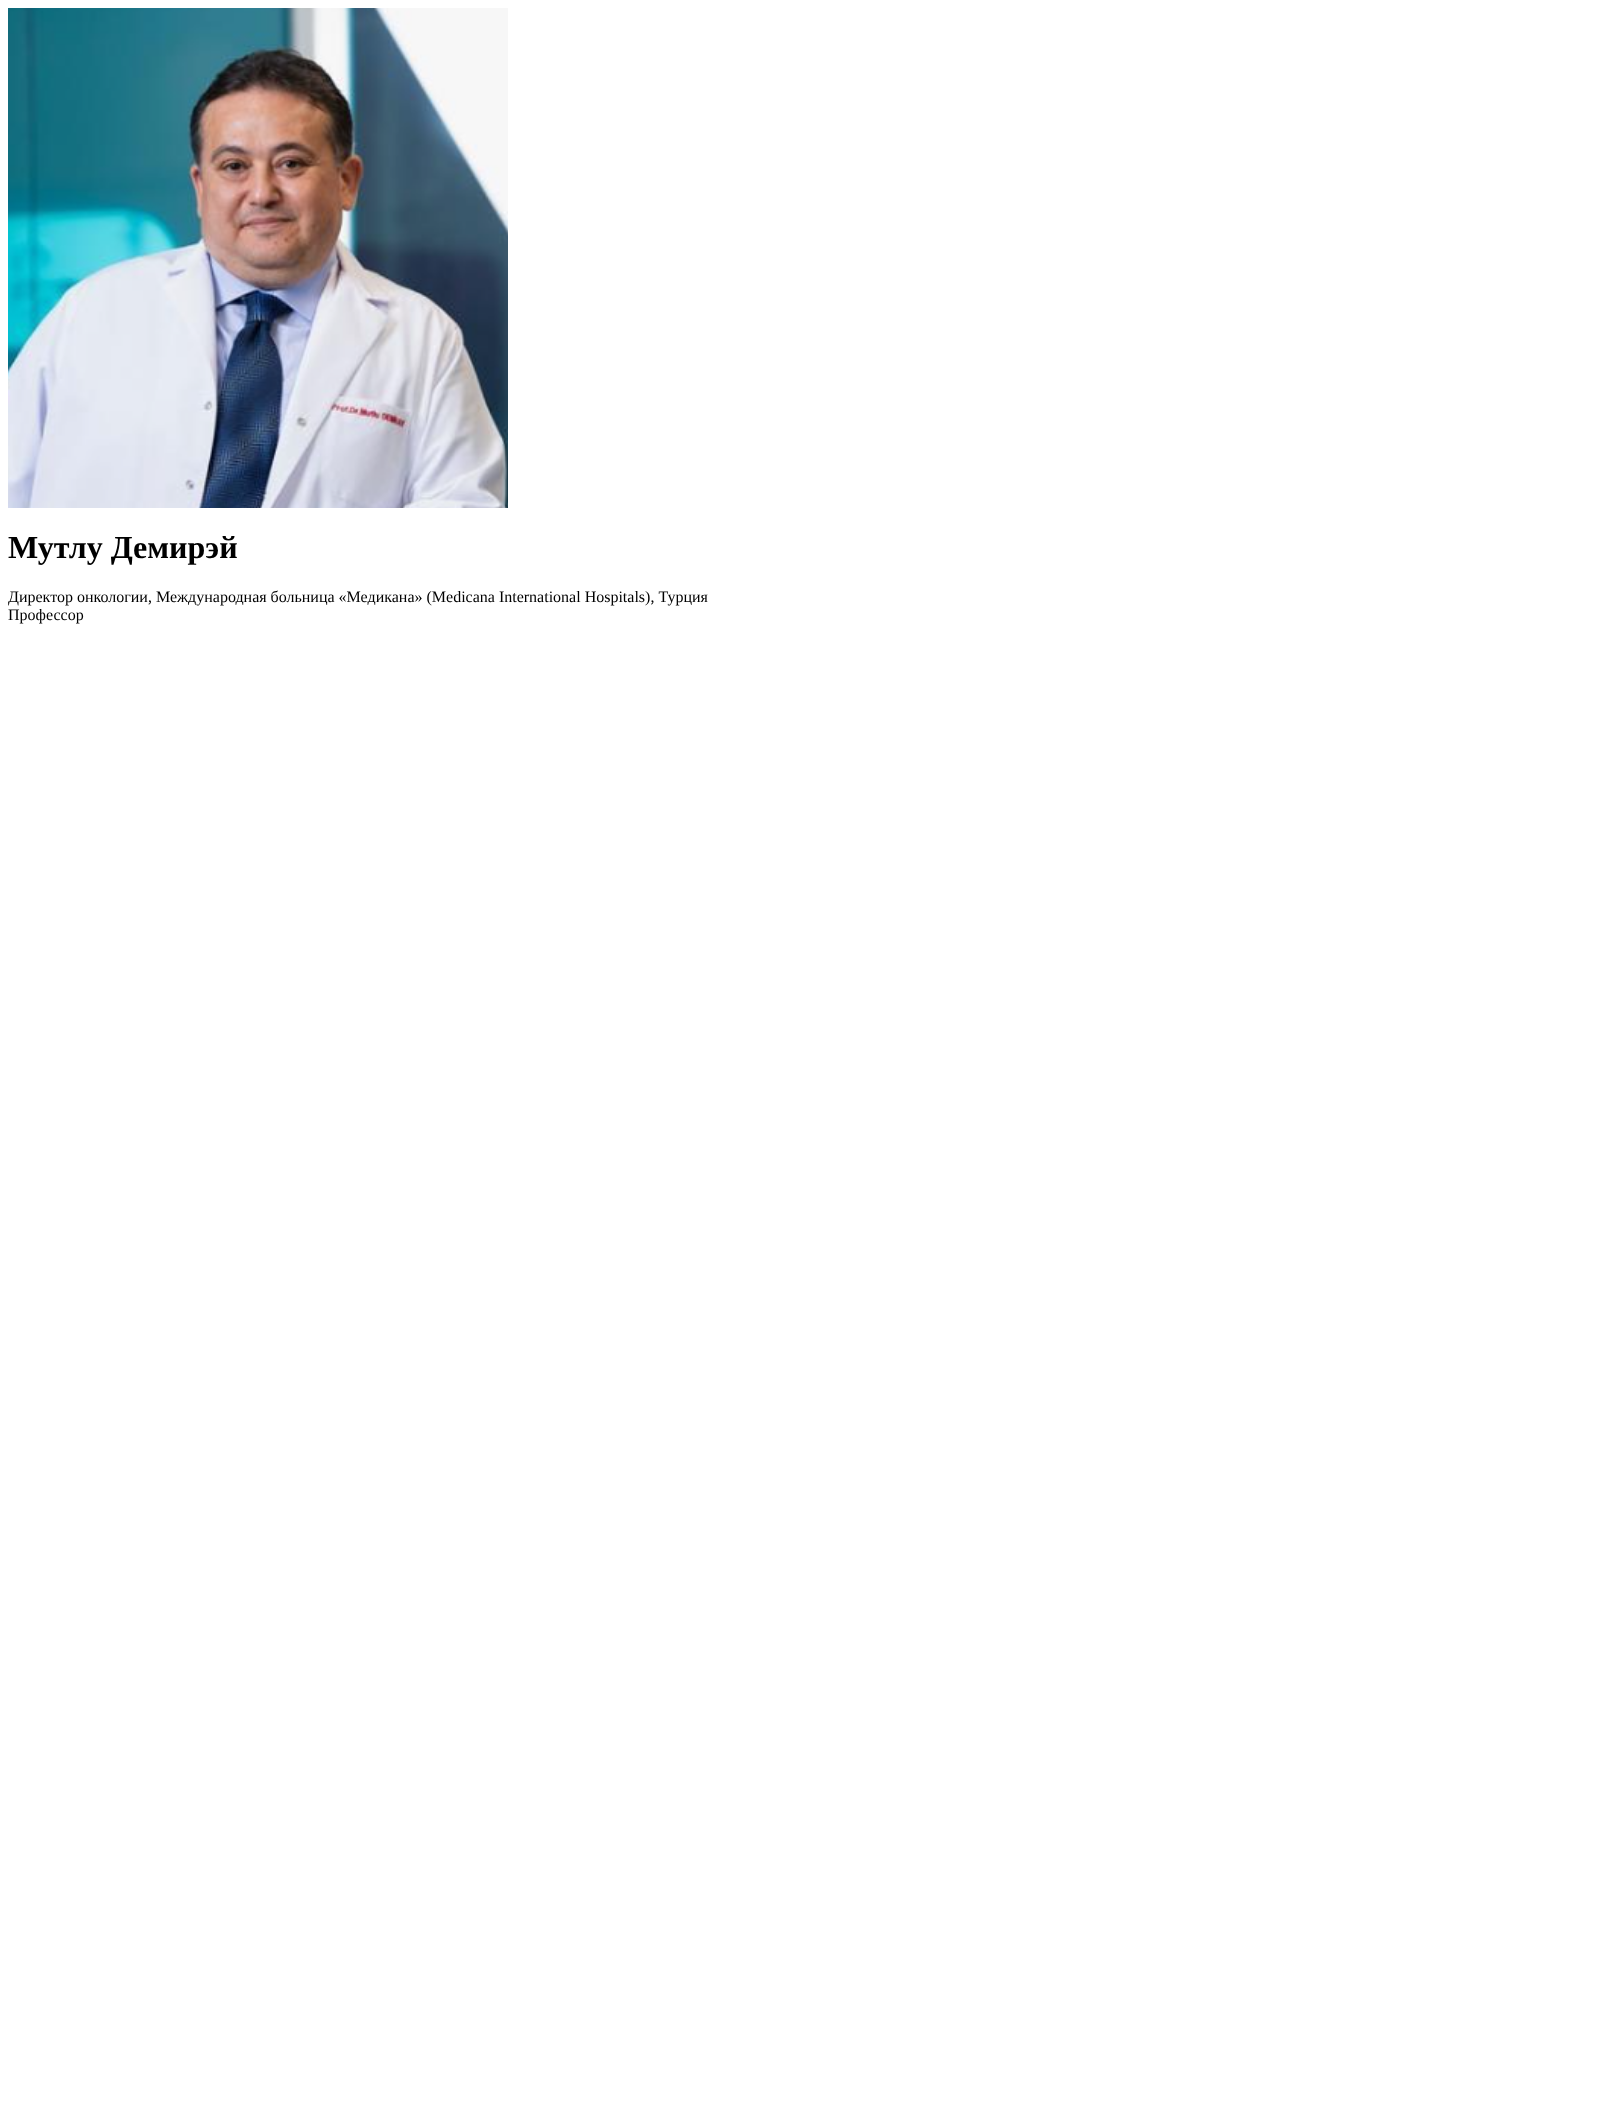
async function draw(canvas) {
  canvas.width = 1608
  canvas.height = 2128
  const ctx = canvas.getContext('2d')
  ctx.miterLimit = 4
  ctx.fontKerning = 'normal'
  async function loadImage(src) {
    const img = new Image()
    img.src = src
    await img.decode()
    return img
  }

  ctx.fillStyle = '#fff'
  ctx.fillRect(0, 0, 1608, 2128)
  ctx.drawImage(await loadImage('image0.png'), 8, 8, 500, 500)
  ctx.font = 'bold 32px Liberation Serif'
  ctx.fillStyle = '#000'
  ctx.fillText('Мутлу Демирэй', 8, 558)
  ctx.font = '16px Liberation Serif'
  ctx.fillText('Директор онкологии, Международная больница «Медикана» (Medicana International Hospitals), Турция', 8, 602)
  ctx.fillText('Профессор', 8, 620)
}

draw(document.querySelector('canvas'))
